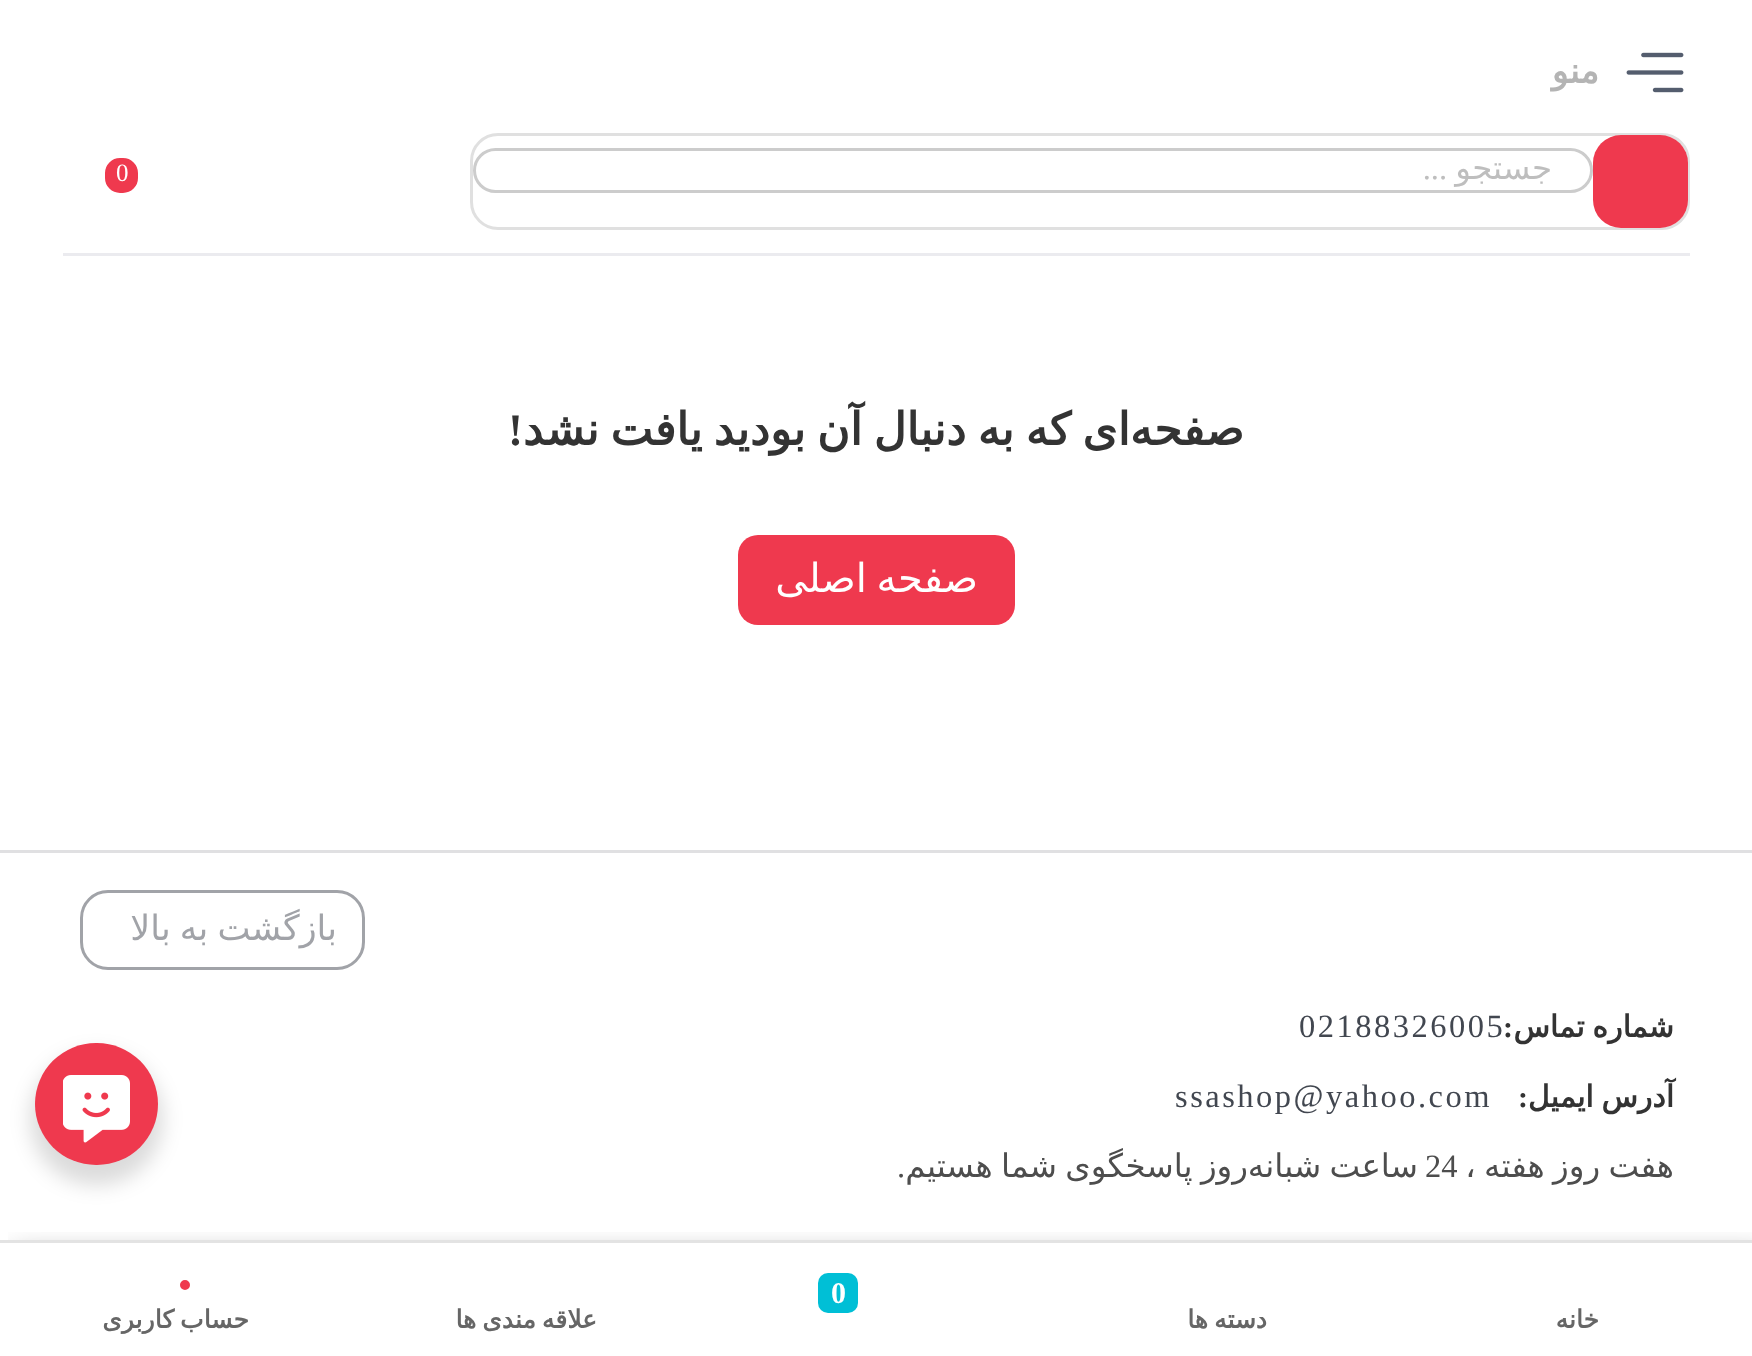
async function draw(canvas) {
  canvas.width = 1752
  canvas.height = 1356
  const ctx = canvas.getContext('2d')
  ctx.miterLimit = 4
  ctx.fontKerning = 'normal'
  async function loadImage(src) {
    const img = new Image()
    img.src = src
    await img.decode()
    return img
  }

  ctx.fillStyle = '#fff'
  ctx.fillRect(0, 0, 1752, 1356)
  ctx.drawImage(await loadImage('image0.png'), 1626, 52, 58, 41)
  ctx.direction = 'rtl'
  ctx.font = 'bold 35px DejaVu Sans'
  ctx.fillStyle = '#b4b4b4'
  ctx.fillText('منو', 1599, 83)
  ctx.fillStyle = '#ebebef'
  ctx.fillRect(63, 253, 1627, 3)
  ctx.beginPath()
  ctx.roundRect(471.5, 134.5, 1217, 94, 26.5)
  ctx.strokeStyle = '#e0e0e0'
  ctx.lineWidth = 3
  ctx.stroke()
  ctx.fillStyle = '#ef394e'
  ctx.beginPath()
  ctx.roundRect(1593, 135, 95, 93, 28)
  ctx.fill()
  ctx.beginPath()
  ctx.roundRect(474.5, 149.5, 1117, 42, 21)
  ctx.strokeStyle = '#ccc'
  ctx.stroke()
  ctx.font = '32.5px DejaVu Sans'
  ctx.fillStyle = '#bebebe'
  ctx.fillText('جستجو', 1552, 179)
  ctx.font = '32.5px Liberation Serif'
  ctx.fillText('...', 1447, 179)
  ctx.fillStyle = '#ef394e'
  ctx.beginPath()
  ctx.roundRect(102.5, 155.5, 38, 40, 17.5)
  ctx.fill()
  ctx.strokeStyle = '#fff'
  ctx.lineWidth = 5
  ctx.stroke()
  ctx.direction = 'ltr'
  ctx.font = '25px Liberation Serif'
  ctx.fillStyle = '#fff'
  ctx.fillText('0', 116, 181)
  ctx.direction = 'rtl'
  ctx.font = 'bold 45px DejaVu Sans'
  ctx.fillStyle = '#333'
  ctx.fillText('صفحه', 1244, 445)
  ctx.wordSpacing = '-3px'
  ctx.fillText('ای که به دنبال آن بودید یافت نشد', 1130, 445)
  ctx.wordSpacing = '0px'
  ctx.font = 'bold 45px Liberation Serif'
  ctx.fillText('!', 523, 445)
  ctx.fillStyle = '#ef394e'
  ctx.beginPath()
  ctx.roundRect(738, 535, 277, 90, 20)
  ctx.fill()
  ctx.wordSpacing = '-3px'
  ctx.font = '40px DejaVu Sans'
  ctx.fillStyle = '#fff'
  ctx.fillText('صفحه اصلی', 978, 592)
  ctx.fillStyle = '#e0e0e2'
  ctx.fillRect(0, 850, 1752, 3)
  ctx.beginPath()
  ctx.roundRect(81.5, 891.5, 282, 77, 26.5)
  ctx.strokeStyle = '#a1a3a8'
  ctx.lineWidth = 3
  ctx.stroke()
  ctx.wordSpacing = '-2px'
  ctx.font = '35px DejaVu Sans'
  ctx.fillStyle = '#a1a3a8'
  ctx.fillText('بازگشت به بالا', 337, 940)
  ctx.font = 'bold 30px DejaVu Sans'
  ctx.fillStyle = '#333'
  ctx.fillText('شماره تماس', 1674, 1037)
  ctx.wordSpacing = '0px'
  ctx.font = 'bold 30px Liberation Serif'
  ctx.fillText(':', 1513, 1037)
  ctx.letterSpacing = '2.5px'
  ctx.direction = 'ltr'
  ctx.font = '32.5px Liberation Serif'
  ctx.fillStyle = '#424750'
  ctx.fillText('02188326005', 1299, 1037)
  ctx.letterSpacing = '0px'
  ctx.wordSpacing = '-2px'
  ctx.direction = 'rtl'
  ctx.font = 'bold 30px DejaVu Sans'
  ctx.fillStyle = '#333'
  ctx.fillText('آدرس ایمیل', 1674, 1107)
  ctx.wordSpacing = '0px'
  ctx.font = 'bold 30px Liberation Serif'
  ctx.fillText(':', 1528, 1107)
  ctx.letterSpacing = '2.5px'
  ctx.direction = 'ltr'
  ctx.font = '32.5px Liberation Serif'
  ctx.fillStyle = '#424750'
  ctx.fillText('ssashop@yahoo.com', 1175, 1107)
  ctx.letterSpacing = '0px'
  ctx.wordSpacing = '-2px'
  ctx.direction = 'rtl'
  ctx.font = '32.5px DejaVu Sans'
  ctx.fillStyle = '#4d4d4d'
  ctx.fillText('هفت روز هفته ،', 1674, 1177)
  ctx.wordSpacing = '0px'
  ctx.direction = 'ltr'
  ctx.font = '32.5px Liberation Serif'
  ctx.fillText('24', 1425, 1177)
  ctx.wordSpacing = '-2px'
  ctx.direction = 'rtl'
  ctx.font = '32.5px DejaVu Sans'
  ctx.fillText('ساعت شبانه', 1418, 1177)
  ctx.fillText('روز پاسخگوی شما هستیم', 1248, 1177)
  ctx.wordSpacing = '0px'
  ctx.font = '32.5px Liberation Serif'
  ctx.fillText('.', 905, 1177)
  ctx.fillStyle = '#00000024'
  ctx.filter = 'blur(10px)'
  ctx.beginPath()
  ctx.roundRect(30, 1053, 133, 132, 66)
  ctx.fill()
  ctx.filter = 'none'
  ctx.fillStyle = '#ef394e'
  ctx.beginPath()
  ctx.roundRect(35, 1043, 123, 122, 61)
  ctx.fill()
  ctx.drawImage(await loadImage('image1.png'), 63, 1075, 67, 68)
  ctx.save()
  ctx.beginPath()
  ctx.rect(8, 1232, 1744, 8)
  ctx.clip()
  ctx.fillStyle = '#00000066'
  ctx.filter = 'blur(14px)'
  ctx.beginPath()
  ctx.rect(13, 1255, 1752, 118)
  ctx.fill()
  ctx.filter = 'none'
  ctx.restore()
  ctx.fillStyle = '#e3e3e3'
  ctx.fillRect(0, 1240, 1752, 3)
  ctx.fillStyle = '#00bfd6'
  ctx.beginPath()
  ctx.roundRect(818, 1273, 40, 40, 10)
  ctx.fill()
  ctx.direction = 'ltr'
  ctx.font = 'bold 30px Liberation Serif'
  ctx.fillStyle = '#fff'
  ctx.fillText('0', 831, 1303)
  ctx.direction = 'rtl'
  ctx.font = 'bold 25px DejaVu Sans'
  ctx.fillStyle = '#666'
  ctx.fillText('خانه', 1599, 1328)
  ctx.wordSpacing = '-2px'
  ctx.fillText('دسته ها', 1267, 1328)
  ctx.fillText('علاقه مندی ها', 597, 1328)
  ctx.fillStyle = '#ef394e'
  ctx.beginPath()
  ctx.arc(185, 1285, 7.5, 0, 2 * Math.PI)
  ctx.fill()
  ctx.strokeStyle = '#fff'
  ctx.lineWidth = 5
  ctx.stroke()
  ctx.fillStyle = '#666'
  ctx.fillText('حساب کاربری', 249, 1328)
}

draw(document.querySelector('canvas'))
